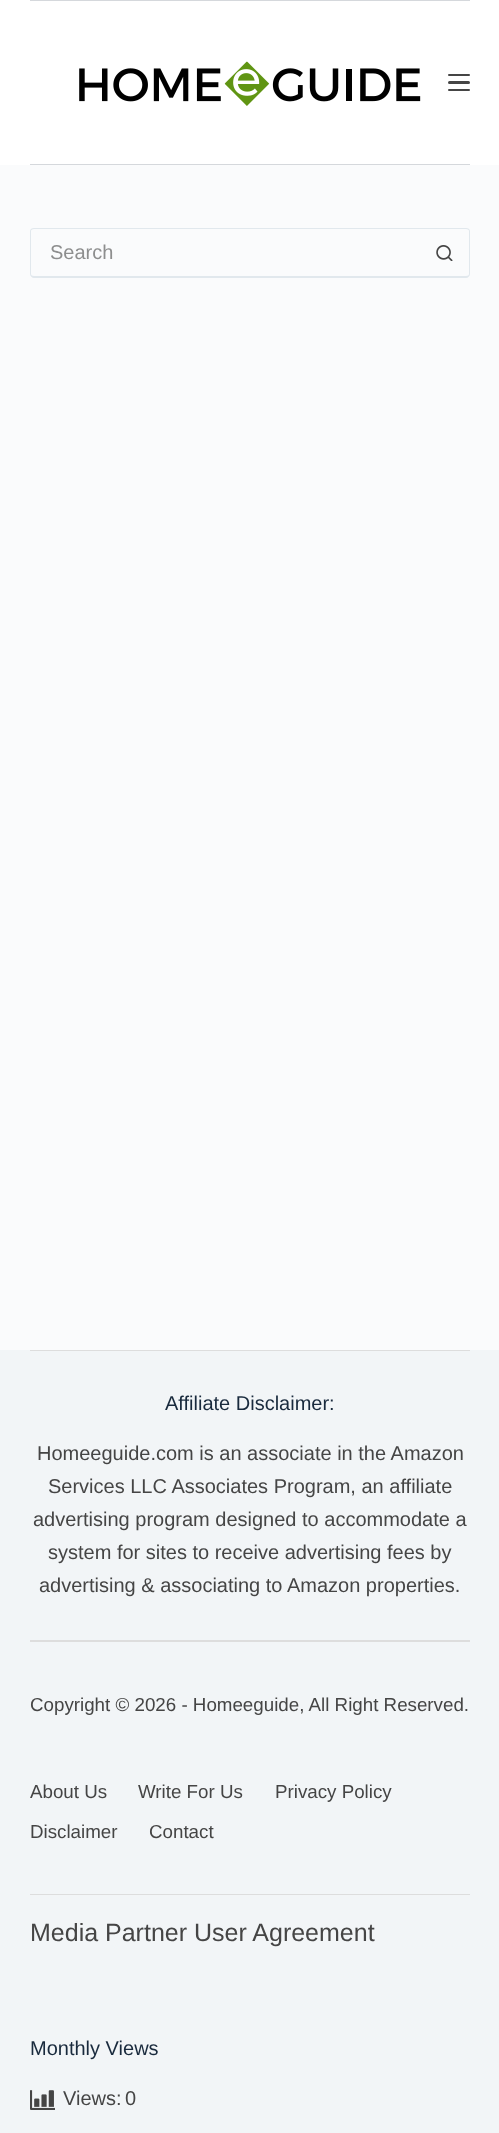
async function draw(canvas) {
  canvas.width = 499
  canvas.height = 2133
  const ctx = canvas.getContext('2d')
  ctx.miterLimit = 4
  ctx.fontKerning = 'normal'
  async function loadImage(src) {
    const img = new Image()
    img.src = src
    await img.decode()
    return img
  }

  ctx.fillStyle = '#fafbfc'
  ctx.fillRect(0, 0, 499, 2133)
  ctx.fillStyle = '#fff'
  ctx.fillRect(0, 0, 499, 165)
  ctx.fillStyle = '#d5d8dc'
  ctx.fillRect(30, 0, 440, 1)
  ctx.fillRect(30, 164, 440, 1)
  ctx.drawImage(await loadImage('image0.png'), 79, 61, 342, 45)
  ctx.fillStyle = '#454545'
  ctx.beginPath()
  ctx.roundRect(448, 74, 22, 2, 1)
  ctx.fill()
  ctx.beginPath()
  ctx.roundRect(448, 81, 22, 3, 1.5)
  ctx.fill()
  ctx.beginPath()
  ctx.roundRect(448, 89, 22, 2, 1)
  ctx.fill()
  ctx.fillStyle = '#e1e8ed'
  ctx.beginPath()
  ctx.moveTo(34, 228)
  ctx.lineTo(420, 228)
  ctx.lineTo(420, 278)
  ctx.lineTo(34, 278)
  ctx.bezierCurveTo(32, 278, 30, 276, 30, 274)
  ctx.lineTo(30, 231)
  ctx.bezierCurveTo(30, 229, 32, 228, 34, 228)
  ctx.closePath()
  ctx.moveTo(34, 229)
  ctx.lineTo(420, 229)
  ctx.lineTo(420, 276)
  ctx.lineTo(34, 276)
  ctx.bezierCurveTo(32, 276, 31, 275, 31, 274)
  ctx.lineTo(31, 231)
  ctx.bezierCurveTo(31, 230, 32, 229, 34, 229)
  ctx.closePath()
  ctx.fill('evenodd')
  ctx.font = '20px Liberation Sans'
  ctx.fillStyle = '#8d8e8e'
  ctx.fillText('Search', 50, 259)
  ctx.fillStyle = '#e1e8ed'
  ctx.beginPath()
  ctx.moveTo(420, 228)
  ctx.lineTo(466, 228)
  ctx.bezierCurveTo(468, 228, 470, 229, 470, 231)
  ctx.lineTo(470, 274)
  ctx.bezierCurveTo(470, 276, 468, 278, 466, 278)
  ctx.lineTo(420, 278)
  ctx.closePath()
  ctx.moveTo(420, 229)
  ctx.lineTo(466, 229)
  ctx.bezierCurveTo(468, 229, 469, 230, 469, 231)
  ctx.lineTo(469, 274)
  ctx.bezierCurveTo(469, 275, 468, 276, 466, 276)
  ctx.lineTo(420, 276)
  ctx.closePath()
  ctx.fill('evenodd')
  ctx.drawImage(await loadImage('image1.png'), 436, 245, 17, 16)
  ctx.fillStyle = '#f2f5f7'
  ctx.fillRect(0, 1350, 499, 783)
  ctx.fillStyle = '#ddd'
  ctx.fillRect(30, 1350, 440, 1)
  ctx.fillStyle = '#192a3d'
  ctx.fillText('Affiliate Disclaimer:', 165, 1410)
  ctx.fillStyle = '#454545'
  ctx.fillText('Homeeguide.com is an associate in the Amazon', 37, 1460)
  ctx.fillText('Services LLC Associates Program, an affiliate', 48, 1493)
  ctx.fillText('advertising program designed to accommodate a', 33, 1526)
  ctx.fillText('system for sites to receive advertising fees by', 48, 1559)
  ctx.fillText('advertising & associating to Amazon properties.', 39, 1592)
  ctx.fillStyle = '#ddd'
  ctx.fillRect(30, 1640, 440, 2)
  ctx.fillRect(30, 1894, 440, 1)
  ctx.font = '18.75px Liberation Sans'
  ctx.fillStyle = '#454545'
  ctx.fillText('Copyright © 2026 - Homeeguide, All Right Reserved.', 30, 1711)
  ctx.fillText('About Us', 30, 1798)
  ctx.fillText('Write For Us', 138, 1798)
  ctx.fillText('Privacy Policy', 275, 1798)
  ctx.fillText('Disclaimer', 30, 1838)
  ctx.fillText('Contact', 149, 1838)
  ctx.font = '25px Liberation Sans'
  ctx.fillText('Media Partner User Agreement', 30, 1941)
  ctx.font = '20px Liberation Sans'
  ctx.fillStyle = '#192a3d'
  ctx.fillText('Monthly Views', 30, 2055)
  ctx.drawImage(await loadImage('image2.png'), 30, 2090, 25, 20)
  ctx.fillStyle = '#454545'
  ctx.fillText('Views:', 63, 2105)
  ctx.fillText('0', 125, 2105)
}

draw(document.querySelector('canvas'))
